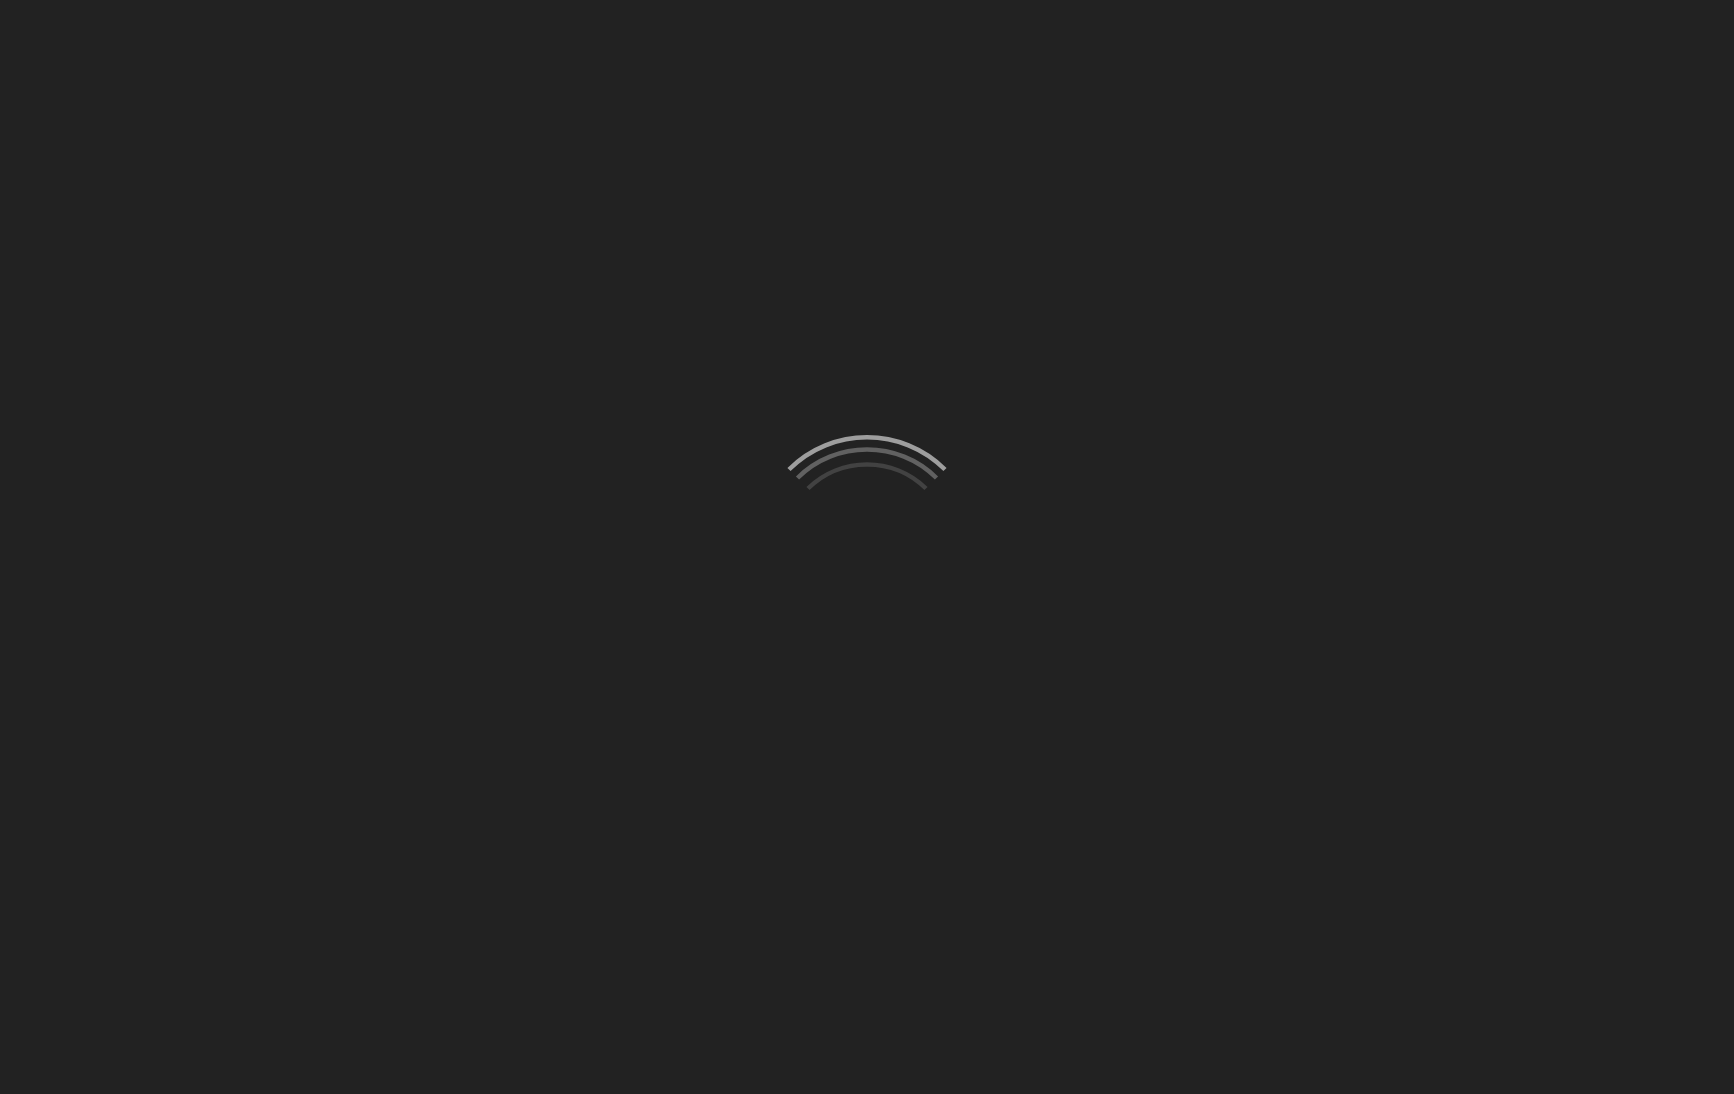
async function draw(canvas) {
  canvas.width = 1734
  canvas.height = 1094
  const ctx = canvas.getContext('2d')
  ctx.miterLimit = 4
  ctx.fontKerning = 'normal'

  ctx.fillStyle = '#222'
  ctx.fillRect(0, 0, 1734, 1094)
  ctx.beginPath()
  ctx.moveTo(789, 469.5)
  ctx.bezierCurveTo(832, 426.5, 902, 426.5, 945, 469.5)
  ctx.strokeStyle = '#9e9e9e'
  ctx.lineWidth = 4.5
  ctx.stroke()
  ctx.beginPath()
  ctx.moveTo(797.5, 478)
  ctx.bezierCurveTo(835.5, 440, 898.5, 440, 936.5, 478)
  ctx.strokeStyle = '#616161'
  ctx.stroke()
  ctx.beginPath()
  ctx.moveTo(808, 488.5)
  ctx.bezierCurveTo(840.5, 456.5, 893.5, 456.5, 926, 488.5)
  ctx.strokeStyle = '#424242'
  ctx.stroke()
}

draw(document.querySelector('canvas'))
